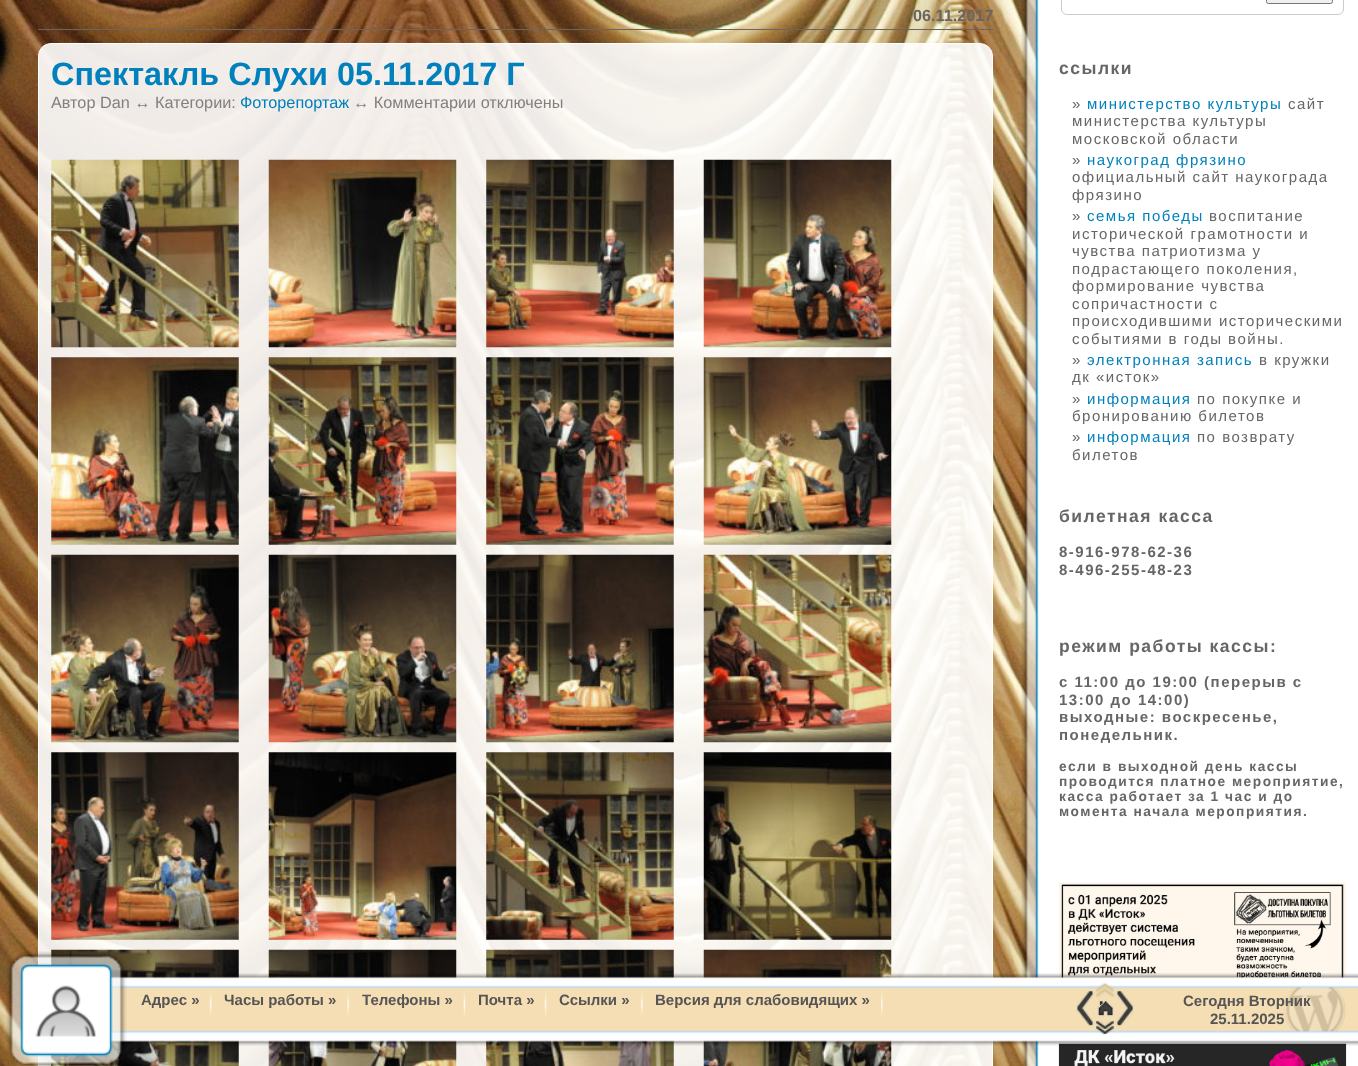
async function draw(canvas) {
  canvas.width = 1358
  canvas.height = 1066
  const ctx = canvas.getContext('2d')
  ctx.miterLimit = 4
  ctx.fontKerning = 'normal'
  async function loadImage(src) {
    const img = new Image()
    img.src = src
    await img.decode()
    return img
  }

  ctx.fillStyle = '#fff'
  ctx.fillRect(0, 0, 1358, 1066)
  ctx.drawImage(await loadImage('image0.png'), 0, 0, 1037, 1066)
  ctx.fillStyle = '#666'
  ctx.fillRect(38, 29, 955, 1)
  ctx.font = 'bold 16.25px Liberation Sans'
  ctx.fillText('06.11.2017', 913, 21)
  ctx.fillStyle = '#ffffffe6'
  ctx.beginPath()
  ctx.roundRect(38.5, 43.5, 954, 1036, 12.5)
  ctx.fill()
  ctx.strokeStyle = '#fff'
  ctx.stroke()
  ctx.font = 'bold 32.4px Liberation Sans'
  ctx.fillStyle = '#0080bc'
  ctx.fillText('Спектакль Слухи 05.11.2017 Г', 51, 85)
  ctx.font = '16.25px Liberation Sans'
  ctx.fillStyle = '#808080'
  ctx.fillText('Автор Dan ↔ Категории:', 51, 108)
  ctx.fillStyle = '#0080bc'
  ctx.fillText('Фоторепортаж', 240, 108)
  ctx.fillStyle = '#808080'
  ctx.fillText('↔ Комментарии отключены', 353, 108)
  ctx.drawImage(await loadImage('image1.png'), 51, 159, 188, 189)
  ctx.drawImage(await loadImage('image2.png'), 268, 159, 189, 189)
  ctx.drawImage(await loadImage('image3.png'), 486, 159, 188, 189)
  ctx.drawImage(await loadImage('image4.png'), 703, 159, 189, 189)
  ctx.drawImage(await loadImage('image5.png'), 51, 357, 188, 188)
  ctx.drawImage(await loadImage('image6.png'), 268, 357, 189, 188)
  ctx.drawImage(await loadImage('image7.png'), 486, 357, 188, 188)
  ctx.drawImage(await loadImage('image8.png'), 703, 357, 189, 188)
  ctx.drawImage(await loadImage('image9.png'), 51, 554, 188, 189)
  ctx.drawImage(await loadImage('image10.png'), 268, 554, 189, 189)
  ctx.drawImage(await loadImage('image11.png'), 486, 554, 188, 189)
  ctx.drawImage(await loadImage('image12.png'), 703, 554, 189, 189)
  ctx.drawImage(await loadImage('image13.png'), 51, 752, 188, 188)
  ctx.drawImage(await loadImage('image14.png'), 268, 752, 189, 188)
  ctx.drawImage(await loadImage('image15.png'), 486, 752, 188, 188)
  ctx.drawImage(await loadImage('image16.png'), 703, 752, 189, 188)
  ctx.drawImage(await loadImage('image17.png'), 51, 949, 188, 117)
  ctx.drawImage(await loadImage('image18.png'), 268, 949, 189, 117)
  ctx.drawImage(await loadImage('image19.png'), 486, 949, 188, 117)
  ctx.drawImage(await loadImage('image20.png'), 703, 949, 189, 117)
  ctx.drawImage(await loadImage('image21.png'), 1021, 0, 337, 1066)
  ctx.beginPath()
  ctx.roundRect(1061.5, -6.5, 282, 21, 5.5)
  ctx.strokeStyle = '#ccc'
  ctx.stroke()
  ctx.fillStyle = '#efefef'
  ctx.beginPath()
  ctx.roundRect(1266.5, -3.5, 66, 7, 2)
  ctx.fill()
  ctx.strokeStyle = '#767676'
  ctx.stroke()
  ctx.letterSpacing = '1.5px'
  ctx.font = 'bold 17.5px Liberation Sans'
  ctx.fillStyle = '#666'
  ctx.fillText('ссылки', 1059, 74)
  ctx.font = '15px Liberation Sans'
  ctx.fillText('»', 1072, 109)
  ctx.fillStyle = '#0080bc'
  ctx.fillText('министерство культуры', 1087, 109)
  ctx.fillStyle = '#666'
  ctx.fillText('сайт', 1288, 109)
  ctx.fillText('министерства культуры', 1072, 126)
  ctx.fillText('московской области', 1072, 144)
  ctx.fillText('»', 1072, 165)
  ctx.fillStyle = '#0080bc'
  ctx.fillText('наукоград фрязино', 1087, 165)
  ctx.fillStyle = '#666'
  ctx.fillText('официальный сайт наукограда', 1072, 182)
  ctx.fillText('фрязино', 1072, 200)
  ctx.fillText('»', 1072, 221)
  ctx.fillStyle = '#0080bc'
  ctx.fillText('семья победы', 1087, 221)
  ctx.fillStyle = '#666'
  ctx.fillText('воспитание', 1209, 221)
  ctx.fillText('исторической грамотности и', 1072, 239)
  ctx.fillText('чувства патриотизма у', 1072, 256)
  ctx.fillText('подрастающего поколения,', 1072, 274)
  ctx.fillText('формирование чувства', 1072, 291)
  ctx.fillText('сопричастности с', 1072, 309)
  ctx.fillText('происходившими историческими', 1072, 326)
  ctx.fillText('событиями в годы войны.', 1072, 344)
  ctx.fillText('»', 1072, 365)
  ctx.fillStyle = '#0080bc'
  ctx.fillText('электронная запись', 1087, 365)
  ctx.fillStyle = '#666'
  ctx.fillText('в кружки', 1259, 365)
  ctx.fillText('дк «исток»', 1072, 382)
  ctx.fillText('»', 1072, 404)
  ctx.fillStyle = '#0080bc'
  ctx.fillText('информация', 1087, 404)
  ctx.fillStyle = '#666'
  ctx.fillText('по покупке и', 1197, 404)
  ctx.fillText('бронированию билетов', 1072, 421)
  ctx.fillText('»', 1072, 442)
  ctx.fillStyle = '#0080bc'
  ctx.fillText('информация', 1087, 442)
  ctx.fillStyle = '#666'
  ctx.fillText('по возврату', 1197, 442)
  ctx.fillText('билетов', 1072, 460)
  ctx.font = 'bold 17.5px Liberation Sans'
  ctx.fillText('билетная касса', 1059, 522)
  ctx.font = 'bold 15px Liberation Sans'
  ctx.fillText('8-916-978-62-36', 1059, 557)
  ctx.fillText('8-496-255-48-23', 1059, 575)
  ctx.font = 'bold 17.5px Liberation Sans'
  ctx.fillText('режим работы кассы:', 1059, 652)
  ctx.font = 'bold 15px Liberation Sans'
  ctx.fillText('с 11:00 до 19:00 (перерыв с', 1059, 687)
  ctx.fillText('13:00 до 14:00)', 1059, 705)
  ctx.fillText('выходные: воскресенье,', 1059, 722)
  ctx.fillText('понедельник.', 1059, 740)
  ctx.font = 'bold 13.75px Liberation Sans'
  ctx.fillText('если в выходной день кассы', 1059, 771)
  ctx.fillText('проводится платное мероприятие,', 1059, 786)
  ctx.fillText('касса работает за 1 час и до', 1059, 801)
  ctx.fillText('момента начала мероприятия.', 1059, 816)
  ctx.drawImage(await loadImage('image22.png'), 1059, 882, 287, 97)
  ctx.drawImage(await loadImage('image23.png'), 1058, 1043, 289, 23)
  ctx.drawImage(await loadImage('image24.png'), 111, 973, 1247, 73)
  ctx.drawImage(await loadImage('image25.png'), 6, 951, 121, 115)
  ctx.drawImage(await loadImage('image26.png'), 35, 985, 62, 52)
  ctx.drawImage(await loadImage('image27.png'), 209, 991, 3, 27)
  ctx.letterSpacing = '0px'
  ctx.font = 'bold 15px Liberation Sans'
  ctx.fillStyle = '#555'
  ctx.fillText('Адрес »', 141, 1005)
  ctx.drawImage(await loadImage('image28.png'), 347, 991, 3, 27)
  ctx.fillText('Часы работы »', 224, 1005)
  ctx.drawImage(await loadImage('image29.png'), 463, 991, 3, 27)
  ctx.fillText('Телефоны »', 362, 1005)
  ctx.drawImage(await loadImage('image30.png'), 544, 991, 3, 27)
  ctx.fillText('Почта »', 478, 1005)
  ctx.drawImage(await loadImage('image31.png'), 640, 991, 3, 27)
  ctx.fillText('Ссылки »', 559, 1005)
  ctx.drawImage(await loadImage('image32.png'), 881, 991, 2, 27)
  ctx.fillText('Версия для слабовидящих »', 655, 1005)
  ctx.drawImage(await loadImage('image33.png'), 1284, 987, 62, 45)
  ctx.drawImage(await loadImage('image34.png'), 1076, 982, 58, 54)
  ctx.drawImage(await loadImage('image35.png'), 1077, 991, 16, 35)
  ctx.drawImage(await loadImage('image36.png'), 1098, 1001, 15, 15)
  ctx.drawImage(await loadImage('image37.png'), 1117, 991, 16, 35)
  ctx.drawImage(await loadImage('image38.png'), 1096, 1021, 18, 13)
  ctx.fillText('Сегодня Вторник', 1183, 1006)
  ctx.fillText('25.11.2025', 1210, 1024)
}

draw(document.querySelector('canvas'))
